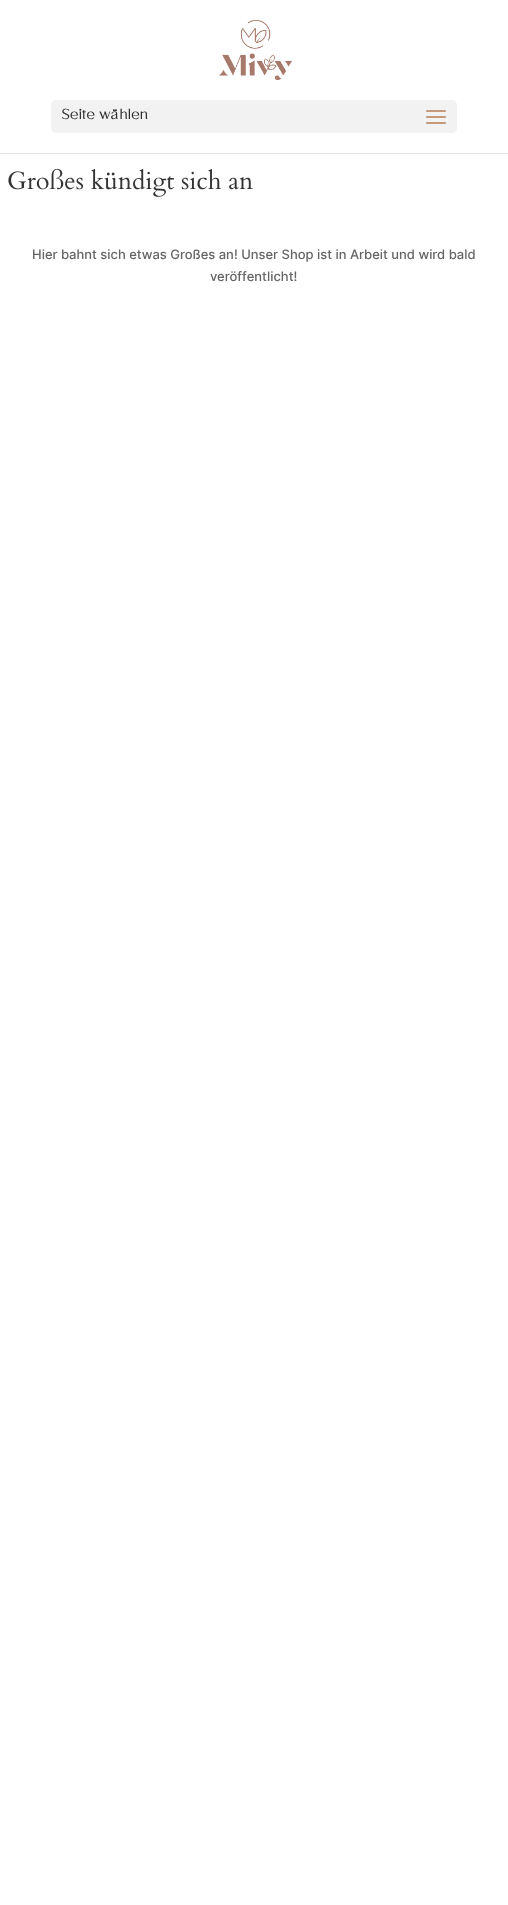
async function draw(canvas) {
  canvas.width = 508
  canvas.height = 1905
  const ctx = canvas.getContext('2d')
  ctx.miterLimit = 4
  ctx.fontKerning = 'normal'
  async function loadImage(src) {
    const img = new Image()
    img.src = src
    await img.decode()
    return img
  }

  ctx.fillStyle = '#fff'
  ctx.fillRect(0, 0, 508, 1905)
  ctx.fillStyle = '#e6e6e6'
  ctx.fillRect(0, 153, 508, 1)
  ctx.drawImage(await loadImage('image0.png'), 219, 20, 73, 60)
  ctx.fillStyle = '#f2f2f2'
  ctx.beginPath()
  ctx.roundRect(51, 100, 406, 33, 5)
  ctx.fill()
  ctx.font = 'bold 14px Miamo'
  ctx.fillStyle = '#2c2c2c'
  ctx.fillText('Seite wählen', 61, 119)
  ctx.drawImage(await loadImage('image1.png'), 426, 110, 20, 14)
  ctx.drawImage(await loadImage('image2.png'), 8, 168, 245, 29)
  ctx.font = '500 13px Inter'
  ctx.fillStyle = '#666'
  ctx.fillText('Hier bahnt sich etwas Großes an! Unser Shop ist in Arbeit und wird bald', 32, 259)
  ctx.fillText('veröffentlicht!', 210, 281)
}

draw(document.querySelector('canvas'))
